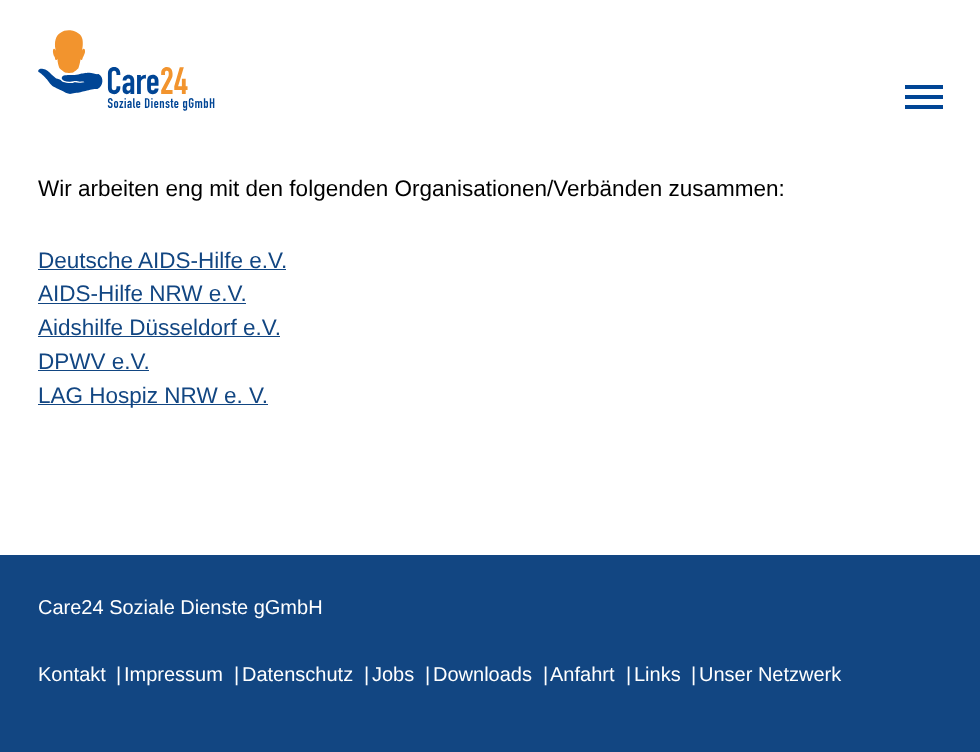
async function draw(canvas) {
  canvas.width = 980
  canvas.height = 752
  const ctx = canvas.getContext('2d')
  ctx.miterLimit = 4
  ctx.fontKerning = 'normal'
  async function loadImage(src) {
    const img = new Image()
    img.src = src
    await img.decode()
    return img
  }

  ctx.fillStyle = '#fff'
  ctx.fillRect(0, 0, 980, 752)
  ctx.drawImage(await loadImage('image0.png'), 38, 30, 177, 81)
  ctx.fillStyle = '#004595'
  ctx.fillRect(905, 95, 38, 4)
  ctx.fillRect(905, 85, 38, 4)
  ctx.fillRect(905, 105, 38, 4)
  ctx.font = '22.5px Liberation Sans'
  ctx.fillStyle = '#000'
  ctx.fillText('Wir arbeiten eng mit den folgenden Organisationen/Verbänden zusammen:', 38, 196)
  ctx.fillStyle = '#124682'
  ctx.fillText('Deutsche AIDS-Hilfe e.V.', 38, 268)
  ctx.fillRect(38, 269, 248, 1)
  ctx.fillText('AIDS-Hilfe NRW e.V.', 38, 301)
  ctx.fillRect(38, 303, 208, 1)
  ctx.fillText('Aidshilfe Düsseldorf e.V.', 38, 335)
  ctx.fillRect(38, 336, 242, 1)
  ctx.fillText('DPWV e.V.', 38, 369)
  ctx.fillRect(38, 370, 111, 1)
  ctx.fillRect(38, 404, 230, 1)
  ctx.fillText('LAG Hospiz NRW e. V.', 38, 403)
  ctx.fillRect(0, 555, 980, 197)
  ctx.font = '20px Liberation Sans'
  ctx.fillStyle = '#fff'
  ctx.fillText('Care24 Soziale Dienste gGmbH', 38, 614)
  ctx.fillText('Kontakt', 38, 681)
  ctx.fillText('|', 116, 681)
  ctx.fillText('Impressum', 124, 681)
  ctx.fillText('|', 234, 681)
  ctx.fillText('Datenschutz', 242, 681)
  ctx.fillText('|', 364, 681)
  ctx.fillText('Jobs', 372, 681)
  ctx.fillText('|', 425, 681)
  ctx.fillText('Downloads', 433, 681)
  ctx.fillText('|', 543, 681)
  ctx.fillText('Anfahrt', 550, 681)
  ctx.fillText('|', 626, 681)
  ctx.fillText('Links', 634, 681)
  ctx.fillText('|', 691, 681)
  ctx.fillText('Unser Netzwerk', 699, 681)
}

draw(document.querySelector('canvas'))
